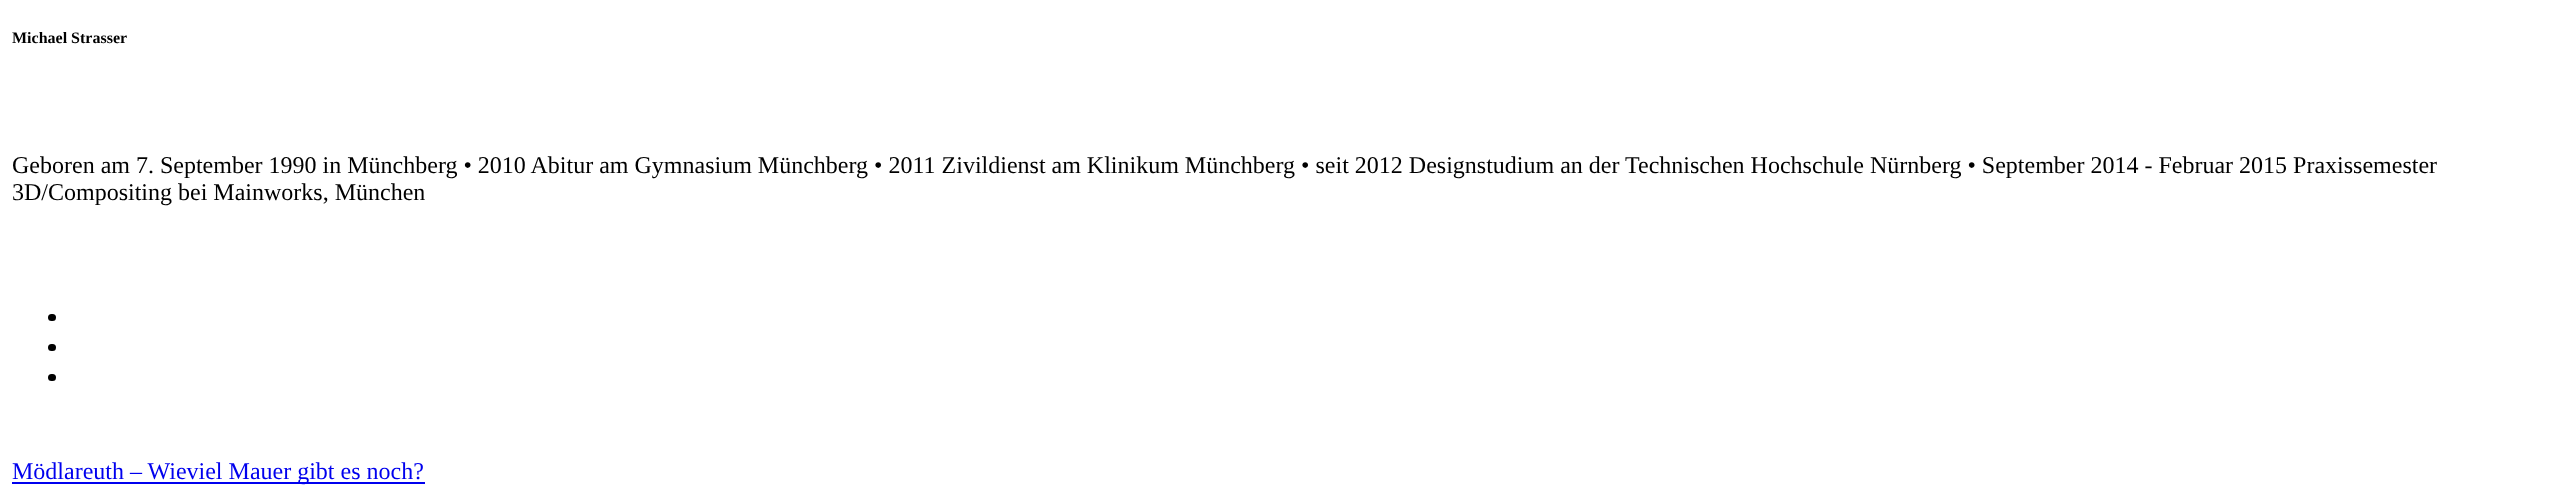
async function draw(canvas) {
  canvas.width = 2568
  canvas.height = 490
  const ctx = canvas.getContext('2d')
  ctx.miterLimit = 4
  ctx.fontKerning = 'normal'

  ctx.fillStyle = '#fff'
  ctx.fillRect(0, 0, 2568, 490)
  ctx.font = 'bold 16px Liberation Serif'
  ctx.fillStyle = '#000'
  ctx.fillText('Michael Strasser', 12, 43)
  ctx.font = '24px Liberation Serif'
  ctx.fillText('Geboren am 7. September 1990 in Münchberg • 2010 Abitur am Gymnasium Münchberg • 2011 Zivildienst am Klinikum Münchberg • seit 2012 Designstudium an der Technischen Hochschule Nürnberg • September 2014 - Februar 2015 Praxissemester', 12, 173)
  ctx.fillText('3D/Compositing bei Mainworks, München', 12, 200)
  ctx.beginPath()
  ctx.roundRect(48, 314, 8, 7, 3.5)
  ctx.fill()
  ctx.beginPath()
  ctx.roundRect(48, 344, 8, 7, 3.5)
  ctx.fill()
  ctx.beginPath()
  ctx.roundRect(48, 374, 8, 7, 3.5)
  ctx.fill()
  ctx.fillStyle = '#00e'
  ctx.fillRect(12, 482, 413, 2)
  ctx.fillText('Mödlareuth – Wieviel Mauer gibt es noch?', 12, 479)
}

draw(document.querySelector('canvas'))
